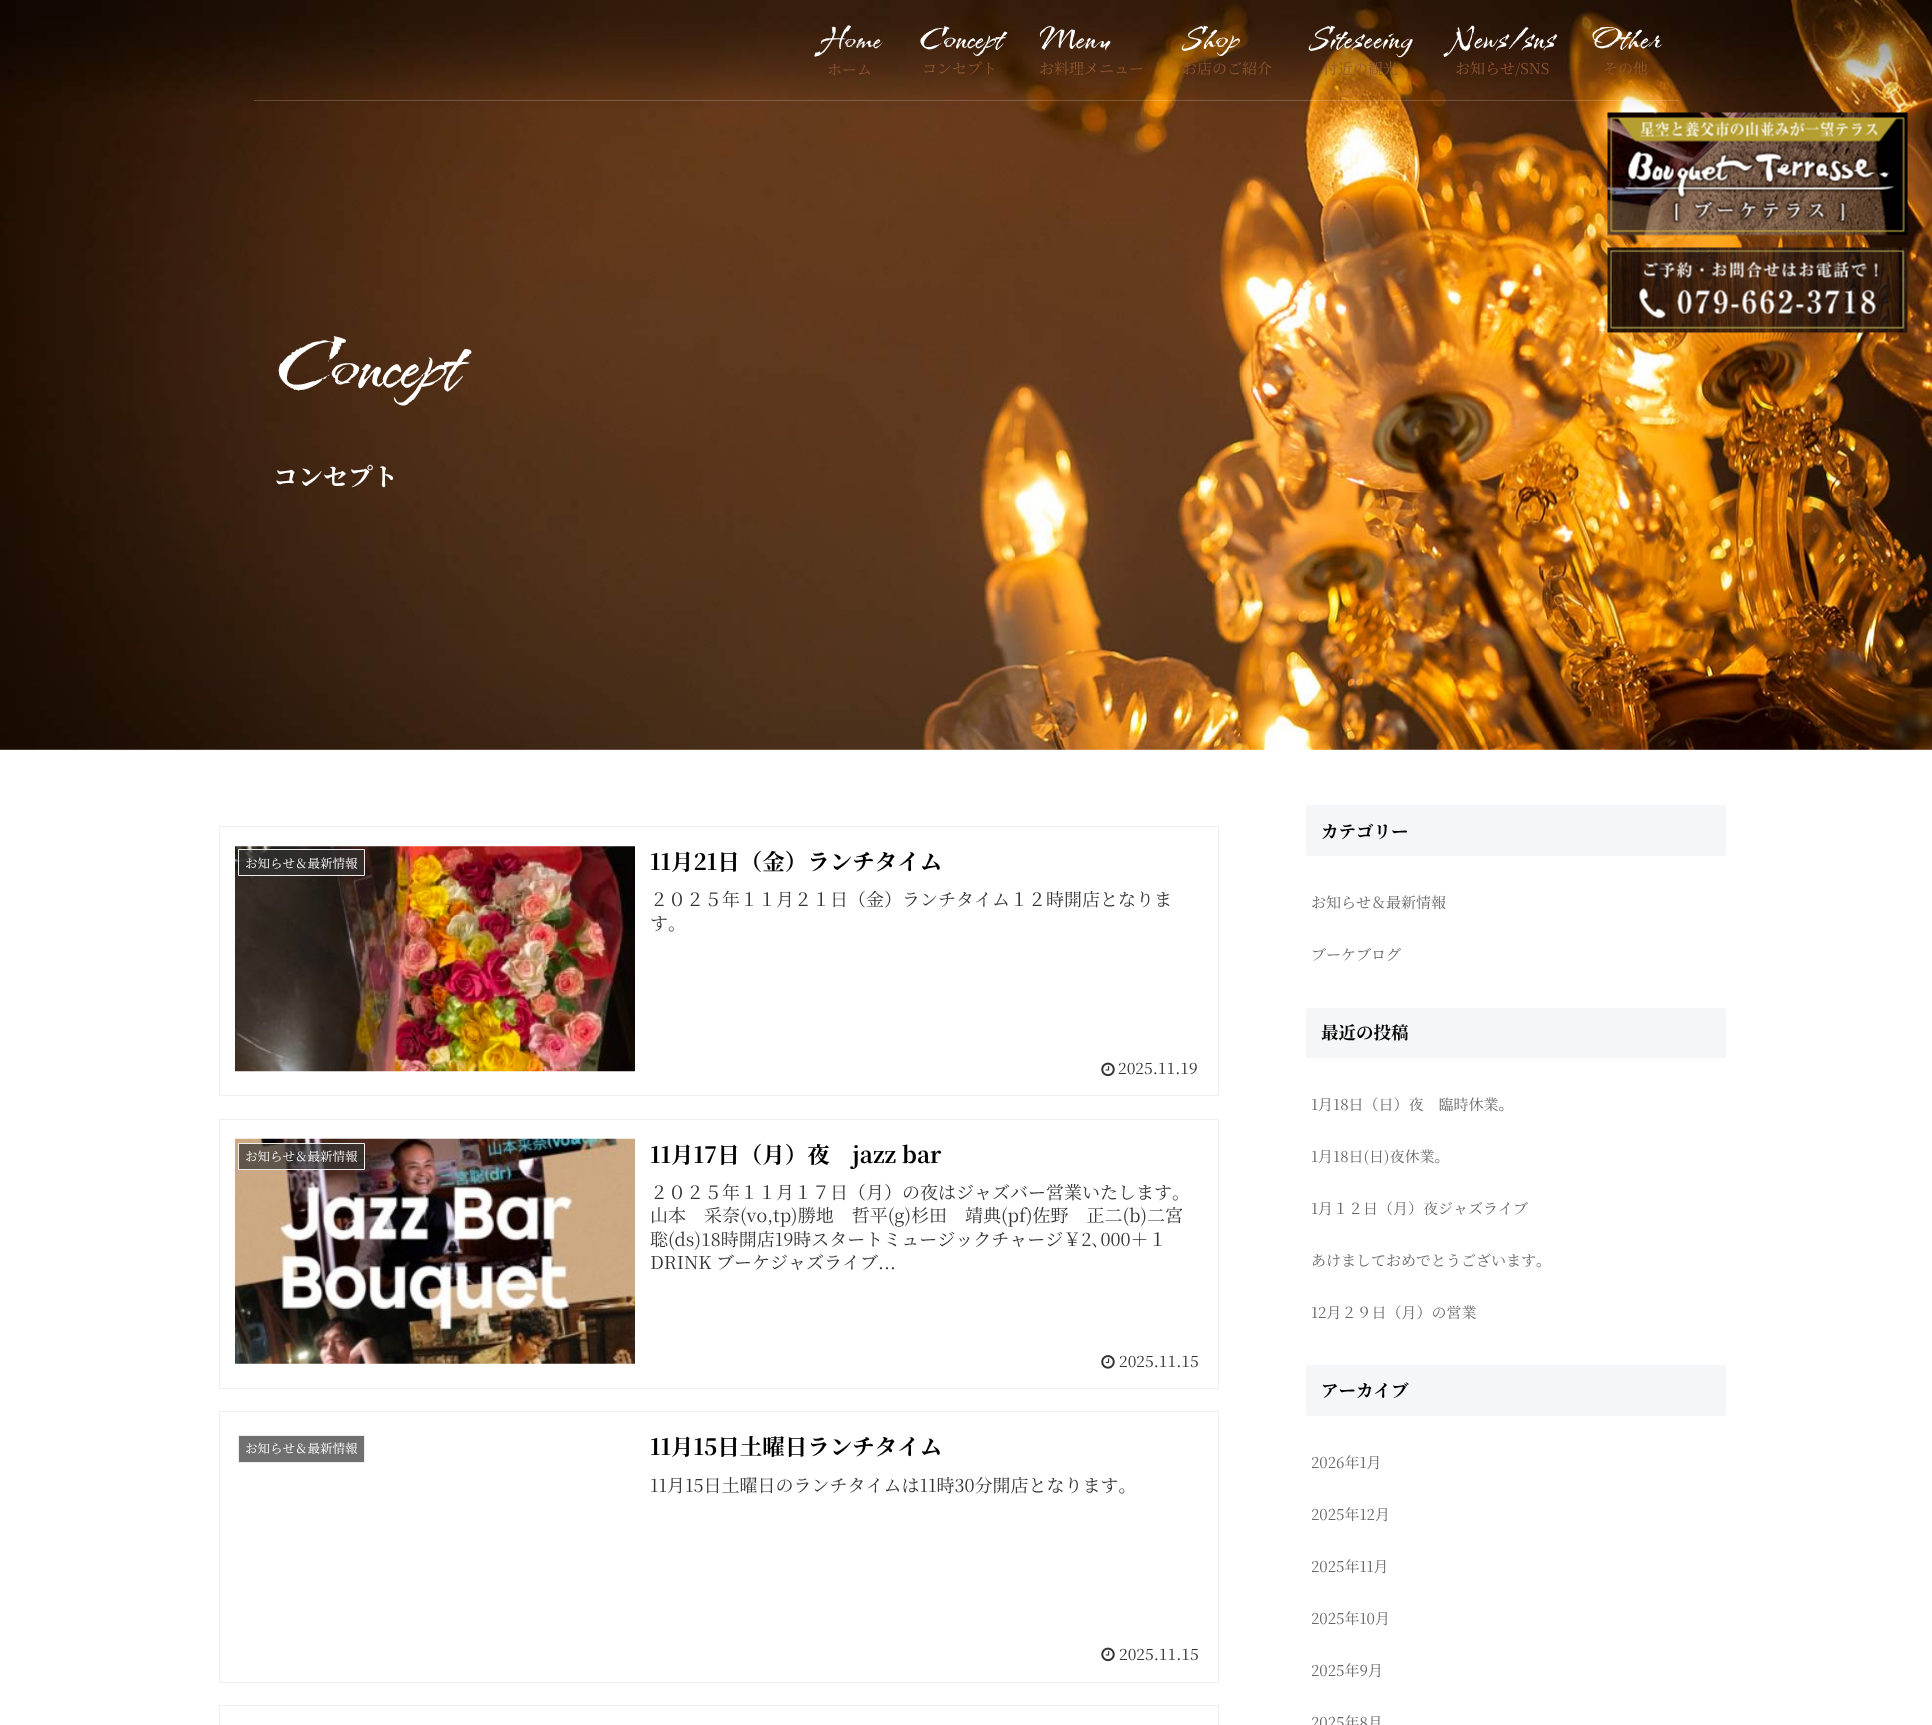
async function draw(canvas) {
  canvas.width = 1932
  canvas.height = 1725
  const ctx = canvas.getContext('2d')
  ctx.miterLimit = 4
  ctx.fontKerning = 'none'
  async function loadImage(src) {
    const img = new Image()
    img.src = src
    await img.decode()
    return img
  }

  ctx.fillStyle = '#fff'
  ctx.fillRect(0, 0, 1932, 1725)
  ctx.drawImage(await loadImage('image0.png'), 0, 0, 1932, 750)
  ctx.fillStyle = '#ffffff33'
  ctx.fillRect(254, 100, 1425, 1)
  ctx.letterSpacing = '1.25px'
  ctx.font = '40px Kolker Brush'
  ctx.fillStyle = '#fff'
  ctx.fillText('Home', 819, 48)
  ctx.letterSpacing = '0px'
  ctx.font = '15px Noto Serif JP'
  ctx.fillStyle = '#92562f'
  ctx.fillText('ホーム', 827, 75)
  ctx.letterSpacing = '1.25px'
  ctx.font = '45px Kolker Brush'
  ctx.fillStyle = '#fff'
  ctx.fillText('Concept', 918, 48)
  ctx.letterSpacing = '0px'
  ctx.font = '15px Noto Serif JP'
  ctx.fillStyle = '#92562f'
  ctx.fillText('コンセプト', 922, 74)
  ctx.letterSpacing = '1.25px'
  ctx.font = '45px Kolker Brush'
  ctx.fillStyle = '#fff'
  ctx.fillText('Menu', 1039, 48)
  ctx.letterSpacing = '0px'
  ctx.font = '15px Noto Serif JP'
  ctx.fillStyle = '#92562f'
  ctx.fillText('お料理メニュー', 1039, 74)
  ctx.letterSpacing = '1.25px'
  ctx.font = '45px Kolker Brush'
  ctx.fillStyle = '#fff'
  ctx.fillText('Shop', 1182, 48)
  ctx.letterSpacing = '0px'
  ctx.font = '15px Noto Serif JP'
  ctx.fillStyle = '#92562f'
  ctx.fillText('お店のご紹介', 1182, 74)
  ctx.letterSpacing = '1.25px'
  ctx.font = '45px Kolker Brush'
  ctx.fillStyle = '#fff'
  ctx.fillText('Siteseeing', 1309, 48)
  ctx.letterSpacing = '0px'
  ctx.font = '15px Noto Serif JP'
  ctx.fillStyle = '#92562f'
  ctx.fillText('付近の観光', 1323, 74)
  ctx.letterSpacing = '1.25px'
  ctx.font = '45px Kolker Brush'
  ctx.fillStyle = '#fff'
  ctx.fillText('News/sns', 1450, 48)
  ctx.letterSpacing = '0px'
  ctx.font = '15px Noto Serif JP'
  ctx.fillStyle = '#92562f'
  ctx.fillText('お知らせ/SNS', 1455, 74)
  ctx.letterSpacing = '1.25px'
  ctx.font = '45px Kolker Brush'
  ctx.fillStyle = '#fff'
  ctx.fillText('Other', 1592, 48)
  ctx.letterSpacing = '0px'
  ctx.font = '15px Noto Serif JP'
  ctx.fillStyle = '#92562f'
  ctx.fillText('その他', 1603, 74)
  ctx.letterSpacing = '1.25px'
  ctx.font = '105px Kolker Brush'
  ctx.fillStyle = '#fff'
  ctx.fillText('Concept', 273, 387)
  ctx.letterSpacing = '0px'
  ctx.font = 'bold 25px Noto Serif JP'
  ctx.fillText('コンセプト', 273, 486)
  ctx.strokeStyle = '#eee'
  ctx.strokeRect(219.5, 826.5, 999, 269)
  ctx.drawImage(await loadImage('image1.png'), 235, 846, 400, 226)
  ctx.fillStyle = '#333333b3'
  ctx.beginPath()
  ctx.rect(238.5, 849.5, 126, 26)
  ctx.fill()
  ctx.stroke()
  ctx.font = '12.5px Noto Serif JP'
  ctx.fillStyle = '#fff'
  ctx.fillText('お知らせ＆最新情報', 245, 868)
  ctx.font = 'bold 22.5px Noto Serif JP'
  ctx.fillStyle = '#000'
  ctx.fillText('11月21日（金）ランチタイム', 650, 870)
  ctx.font = '18px Noto Serif JP'
  ctx.fillStyle = '#333'
  ctx.fillText('２０２５年１１月２１日（金）ランチタイム１２時開店となりま', 650, 906)
  ctx.fillText('す。', 650, 930)
  ctx.drawImage(await loadImage('image2.png'), 1101, 1062, 14, 15)
  ctx.font = '15.75px Noto Serif JP'
  ctx.fillText('2025.11.19', 1118, 1074)
  ctx.strokeRect(219.5, 1119.5, 999, 269)
  ctx.drawImage(await loadImage('image3.png'), 235, 1138, 400, 226)
  ctx.fillStyle = '#333333b3'
  ctx.beginPath()
  ctx.rect(238.5, 1143.5, 126, 26)
  ctx.fill()
  ctx.stroke()
  ctx.font = '12.5px Noto Serif JP'
  ctx.fillStyle = '#fff'
  ctx.fillText('お知らせ＆最新情報', 245, 1161)
  ctx.font = 'bold 22.5px Noto Serif JP'
  ctx.fillStyle = '#000'
  ctx.fillText('11月17日（月）夜　jazz bar', 650, 1163)
  ctx.font = '18px Noto Serif JP'
  ctx.fillStyle = '#333'
  ctx.fillText('２０２５年１１月１７日（月）の夜はジャズバー営業いたします。', 650, 1199)
  ctx.fillText('山本　采奈(vo,tp)勝地　哲平(g)杉田　靖典(pf)佐野　正二(b)二宮', 650, 1222)
  ctx.fillText('聡(ds)18時開店19時スタートミュージックチャージ￥2､000＋１', 650, 1246)
  ctx.fillText('DRINK ブーケジャズライブ...', 650, 1269)
  ctx.drawImage(await loadImage('image4.png'), 1101, 1355, 14, 14)
  ctx.font = '15.75px Noto Serif JP'
  ctx.fillText('2025.11.15', 1119, 1367)
  ctx.strokeRect(219.5, 1411.5, 999, 271)
  ctx.fillStyle = '#707070'
  ctx.beginPath()
  ctx.rect(238.5, 1435.5, 126, 27)
  ctx.fill()
  ctx.stroke()
  ctx.font = '12.5px Noto Serif JP'
  ctx.fillStyle = '#fff'
  ctx.fillText('お知らせ＆最新情報', 245, 1453)
  ctx.font = 'bold 22.5px Noto Serif JP'
  ctx.fillStyle = '#000'
  ctx.fillText('11月15日土曜日ランチタイム', 650, 1455)
  ctx.font = '18px Noto Serif JP'
  ctx.fillStyle = '#333'
  ctx.fillText('11月15日土曜日のランチタイムは11時30分開店となります。', 650, 1492)
  ctx.drawImage(await loadImage('image2.png'), 1101, 1647, 14, 15)
  ctx.font = '15.75px Noto Serif JP'
  ctx.fillText('2025.11.15', 1119, 1660)
  ctx.strokeRect(219.5, 1705.5, 999, 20)
  ctx.fillStyle = '#f5f6f7'
  ctx.beginPath()
  ctx.roundRect(1306, 805, 420, 51, 2.5)
  ctx.fill()
  ctx.font = 'bold 17.5px Noto Serif JP'
  ctx.fillStyle = '#000'
  ctx.fillText('カテゴリー', 1321, 838)
  ctx.font = '15px Noto Serif JP'
  ctx.fillStyle = '#666'
  ctx.fillText('お知らせ＆最新情報', 1311, 908)
  ctx.fillText('ブーケブログ', 1311, 960)
  ctx.fillStyle = '#f5f6f7'
  ctx.beginPath()
  ctx.roundRect(1306, 1008, 420, 50, 2.5)
  ctx.fill()
  ctx.font = 'bold 17.5px Noto Serif JP'
  ctx.fillStyle = '#000'
  ctx.fillText('最近の投稿', 1321, 1039)
  ctx.font = '15px Noto Serif JP'
  ctx.fillStyle = '#666'
  ctx.fillText('1月18日（日）夜　臨時休業。', 1311, 1110)
  ctx.fillText('1月18日(日)夜休業。', 1311, 1162)
  ctx.fillText('1月１２日（月）夜ジャズライブ', 1311, 1214)
  ctx.fillText('あけましておめでとうございます。', 1311, 1266)
  ctx.fillText('12月２９日（月）の営業', 1311, 1318)
  ctx.fillStyle = '#f5f6f7'
  ctx.beginPath()
  ctx.roundRect(1306, 1365, 420, 51, 2.5)
  ctx.fill()
  ctx.font = 'bold 17.5px Noto Serif JP'
  ctx.fillStyle = '#000'
  ctx.fillText('アーカイブ', 1321, 1397)
  ctx.font = '15px Noto Serif JP'
  ctx.fillStyle = '#666'
  ctx.fillText('2026年1月', 1311, 1468)
  ctx.fillText('2025年12月', 1311, 1520)
  ctx.fillText('2025年11月', 1311, 1572)
  ctx.fillText('2025年10月', 1311, 1624)
  ctx.fillText('2025年9月', 1311, 1676)
  ctx.fillText('2025年8月', 1311, 1728)
  ctx.drawImage(await loadImage('image5.png'), 1607, 112, 301, 124)
  ctx.drawImage(await loadImage('image6.png'), 1607, 247, 301, 86)
}

draw(document.querySelector('canvas'))
